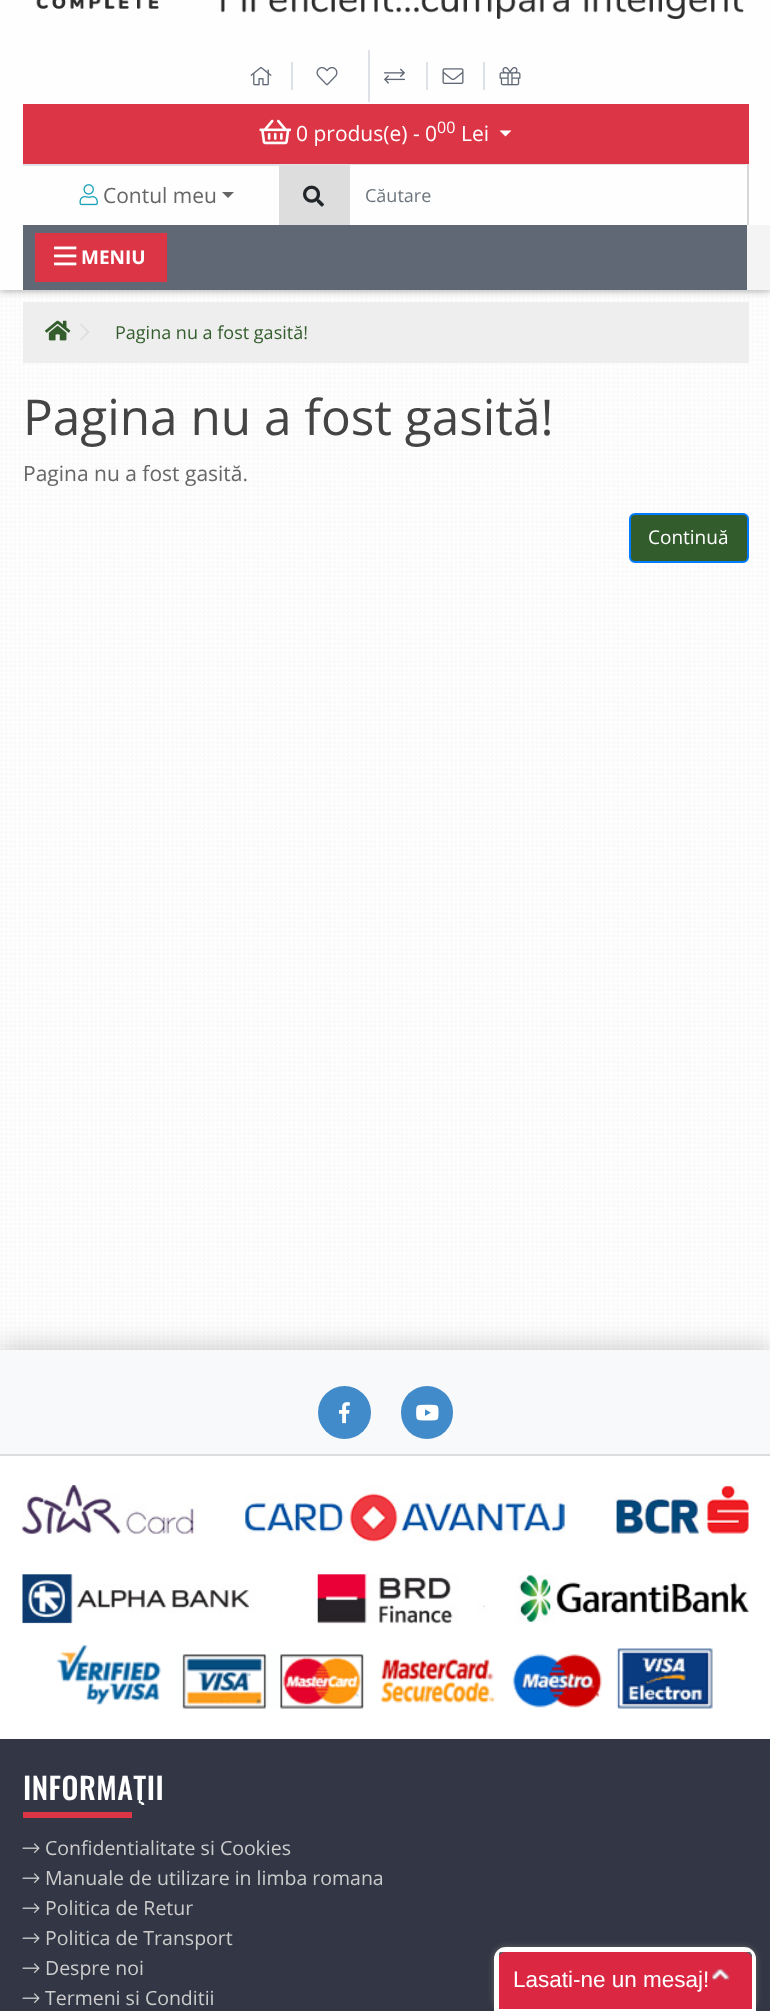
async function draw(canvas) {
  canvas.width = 770
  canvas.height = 2011
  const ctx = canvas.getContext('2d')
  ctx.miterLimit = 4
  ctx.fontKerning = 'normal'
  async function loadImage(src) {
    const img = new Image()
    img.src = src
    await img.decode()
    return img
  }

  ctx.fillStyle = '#fff'
  ctx.fillRect(0, 0, 770, 2011)
  ctx.drawImage(await loadImage('image0.png'), 0, 290, 770, 1060)
  ctx.fillStyle = '#00000066'
  ctx.filter = 'blur(4px)'
  ctx.beginPath()
  ctx.rect(0, -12, 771, 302)
  ctx.fill()
  ctx.filter = 'none'
  ctx.fillStyle = '#fffeff'
  ctx.fillRect(0, 0, 770, 290)
  ctx.drawImage(await loadImage('image1.png'), 36, 0, 708, 19)
  ctx.fillStyle = '#dee2e6'
  ctx.fillRect(23, 164, 726, 2)
  ctx.fillRect(291, 62, 2, 28)
  ctx.drawImage(await loadImage('image2.png'), 250, 67, 22, 19)
  ctx.fillRect(368, 50, 2, 52)
  ctx.drawImage(await loadImage('image3.png'), 316, 66, 22, 20)
  ctx.fillRect(426, 62, 2, 28)
  ctx.drawImage(await loadImage('image4.png'), 384, 68, 21, 16)
  ctx.fillRect(483, 62, 2, 28)
  ctx.drawImage(await loadImage('image5.png'), 442, 68, 22, 16)
  ctx.drawImage(await loadImage('image6.png'), 499, 67, 22, 19)
  ctx.fillStyle = '#dc3545'
  ctx.fillRect(23, 104, 726, 60)
  ctx.drawImage(await loadImage('image7.png'), 259, 119, 32, 26)
  ctx.font = '21px Open Sans'
  ctx.fillStyle = '#fff'
  ctx.fillText('0 produs(e) - 0', 296, 141)
  ctx.font = '16px Open Sans'
  ctx.fillText('00', 437, 133)
  ctx.font = '21px Open Sans'
  ctx.fillText('Lei', 461, 141)
  ctx.beginPath()
  ctx.moveTo(499.5, 130.5)
  ctx.lineTo(511.5, 130.5)
  ctx.lineTo(505.5, 136.5)
  ctx.closePath()
  ctx.fill()
  ctx.drawImage(await loadImage('image8.png'), 79, 184, 19, 22)
  ctx.fillStyle = '#666'
  ctx.fillText('Contul meu', 103, 203)
  ctx.beginPath()
  ctx.moveTo(222, 192)
  ctx.lineTo(234, 192)
  ctx.lineTo(228, 198)
  ctx.closePath()
  ctx.fill()
  ctx.fillStyle = '#ddd'
  ctx.fillRect(279, 165, 71, 60)
  ctx.drawImage(await loadImage('image9.png'), 303, 185, 21, 22)
  ctx.fillStyle = '#fff'
  ctx.fillRect(350, 165, 397, 1)
  ctx.fillStyle = '#d7d7d7'
  ctx.fillRect(747, 165, 2, 60)
  ctx.font = '18px Open Sans'
  ctx.fillStyle = '#6c757d'
  ctx.fillText('Căutare', 365, 202)
  ctx.fillStyle = '#5f6874'
  ctx.fillRect(23, 225, 724, 65)
  ctx.fillStyle = '#f4f4f4'
  ctx.fillRect(747, 225, 23, 65)
  ctx.fillStyle = '#dc3545'
  ctx.fillRect(35, 233, 132, 49)
  ctx.drawImage(await loadImage('image10.png'), 54, 246, 23, 20)
  ctx.font = 'bold 19px Open Sans'
  ctx.fillStyle = '#fff'
  ctx.fillText('MENIU', 81, 264)
  ctx.fillStyle = '#eee'
  ctx.fillRect(23, 302, 726, 61)
  ctx.drawImage(await loadImage('image11.png'), 45, 320, 26, 21)
  ctx.fillStyle = '#ddd'
  ctx.beginPath()
  ctx.moveTo(80, 324.5)
  ctx.lineTo(81, 323.5)
  ctx.lineTo(89.5, 332)
  ctx.lineTo(88, 333)
  ctx.closePath()
  ctx.fill()
  ctx.beginPath()
  ctx.moveTo(80, 339.5)
  ctx.lineTo(88, 331)
  ctx.lineTo(89.5, 332)
  ctx.lineTo(81, 340.5)
  ctx.closePath()
  ctx.fill()
  ctx.font = '18px Open Sans'
  ctx.fillStyle = '#335d2c'
  ctx.fillText('Pagina nu a fost gasită!', 115, 339)
  ctx.font = '49.5px Open Sans'
  ctx.fillStyle = '#444'
  ctx.fillText('Pagina nu a fost gasită!', 23, 435)
  ctx.font = '21px Open Sans'
  ctx.fillStyle = '#666'
  ctx.fillText('Pagina nu a fost gasită.', 23, 481)
  ctx.fillStyle = '#335c2d'
  ctx.beginPath()
  ctx.roundRect(630, 514, 118, 48, 5)
  ctx.fill()
  ctx.strokeStyle = '#007bff'
  ctx.lineWidth = 2
  ctx.stroke()
  ctx.font = '19px Open Sans'
  ctx.fillStyle = '#fff'
  ctx.fillText('Continuă', 648, 544)
  ctx.fillStyle = '#00000026'
  ctx.filter = 'blur(11px)'
  ctx.beginPath()
  ctx.rect(0, 1343, 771, 388)
  ctx.fill()
  ctx.filter = 'none'
  ctx.fillStyle = '#f8f9fa'
  ctx.fillRect(0, 1350, 770, 104)
  ctx.fillStyle = '#428bca'
  ctx.beginPath()
  ctx.arc(344.5, 1412.5, 26.5, 0, 2 * Math.PI)
  ctx.fill()
  ctx.drawImage(await loadImage('image12.png'), 339, 1402, 11, 22)
  ctx.beginPath()
  ctx.roundRect(401, 1386, 52, 53, 26)
  ctx.fill()
  ctx.drawImage(await loadImage('image13.png'), 416, 1404, 23, 17)
  ctx.fillStyle = '#fff'
  ctx.fillRect(0, 1456, 770, 283)
  ctx.fillStyle = '#ddd'
  ctx.fillRect(0, 1454, 770, 2)
  ctx.drawImage(await loadImage('image14.png'), 22, 1485, 727, 58)
  ctx.drawImage(await loadImage('image15.png'), 22, 1574, 727, 50)
  ctx.drawImage(await loadImage('image16.png'), 56, 1645, 657, 64)
  ctx.fillStyle = '#333745'
  ctx.fillRect(0, 1739, 770, 272)
  ctx.save()
  ctx.beginPath()
  ctx.rect(23, 1769, 726, 36)
  ctx.clip()
  ctx.letterSpacing = '0.5px'
  ctx.font = '500 30px Oswald'
  ctx.fillStyle = '#fff'
  ctx.fillText('INFORMAŢII', 23, 1800)
  ctx.restore()
  ctx.fillStyle = '#dc3545'
  ctx.fillRect(23, 1812, 109, 6)
  ctx.drawImage(await loadImage('image17.png'), 22, 1843, 18, 10)
  ctx.font = '19.5px Open Sans'
  ctx.fillStyle = '#ccc'
  ctx.fillText('Confidentialitate si Cookies', 45, 1855)
  ctx.drawImage(await loadImage('image17.png'), 22, 1873, 18, 10)
  ctx.fillText('Manuale de utilizare in limba romana', 45, 1885)
  ctx.drawImage(await loadImage('image17.png'), 22, 1903, 18, 10)
  ctx.fillText('Politica de Retur', 45, 1915)
  ctx.drawImage(await loadImage('image17.png'), 22, 1933, 18, 10)
  ctx.fillText('Politica de Transport', 45, 1945)
  ctx.drawImage(await loadImage('image17.png'), 22, 1963, 18, 10)
  ctx.fillText('Despre noi', 45, 1975)
  ctx.drawImage(await loadImage('image17.png'), 22, 1993, 18, 10)
  ctx.fillText('Termeni si Conditii', 45, 2005)
  ctx.fillStyle = '#666'
  ctx.filter = 'blur(3px)'
  ctx.beginPath()
  ctx.roundRect(494, 1947, 262, 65, 12)
  ctx.fill()
  ctx.filter = 'none'
  ctx.fillStyle = '#dc2742'
  ctx.beginPath()
  ctx.roundRect(498, 1952, 254, 57, [8, 8, 0, 0])
  ctx.fill()
  ctx.drawImage(await loadImage('image18.png'), 712, 1969, 18, 12)
  ctx.beginPath()
  ctx.moveTo(506, 1948.5)
  ctx.lineTo(744, 1948.5)
  ctx.bezierCurveTo(750, 1948.5, 754.5, 1953, 754.5, 1959)
  ctx.lineTo(754.5, 2010.5)
  ctx.lineTo(495.5, 2010.5)
  ctx.lineTo(495.5, 1959)
  ctx.bezierCurveTo(495.5, 1953, 500, 1948.5, 506, 1948.5)
  ctx.closePath()
  ctx.strokeStyle = '#fff'
  ctx.lineWidth = 3
  ctx.stroke()
  ctx.fillStyle = '#fff'
  ctx.fillRect(500, 1950, 250, 2)
  ctx.fillRect(752, 1953, 1, 58)
  ctx.fillRect(497, 1953, 2, 58)
  ctx.font = '22.5px Liberation Sans'
  ctx.fillText('Lasati-ne un mesaj!', 513, 1987)
}

draw(document.querySelector('canvas'))
